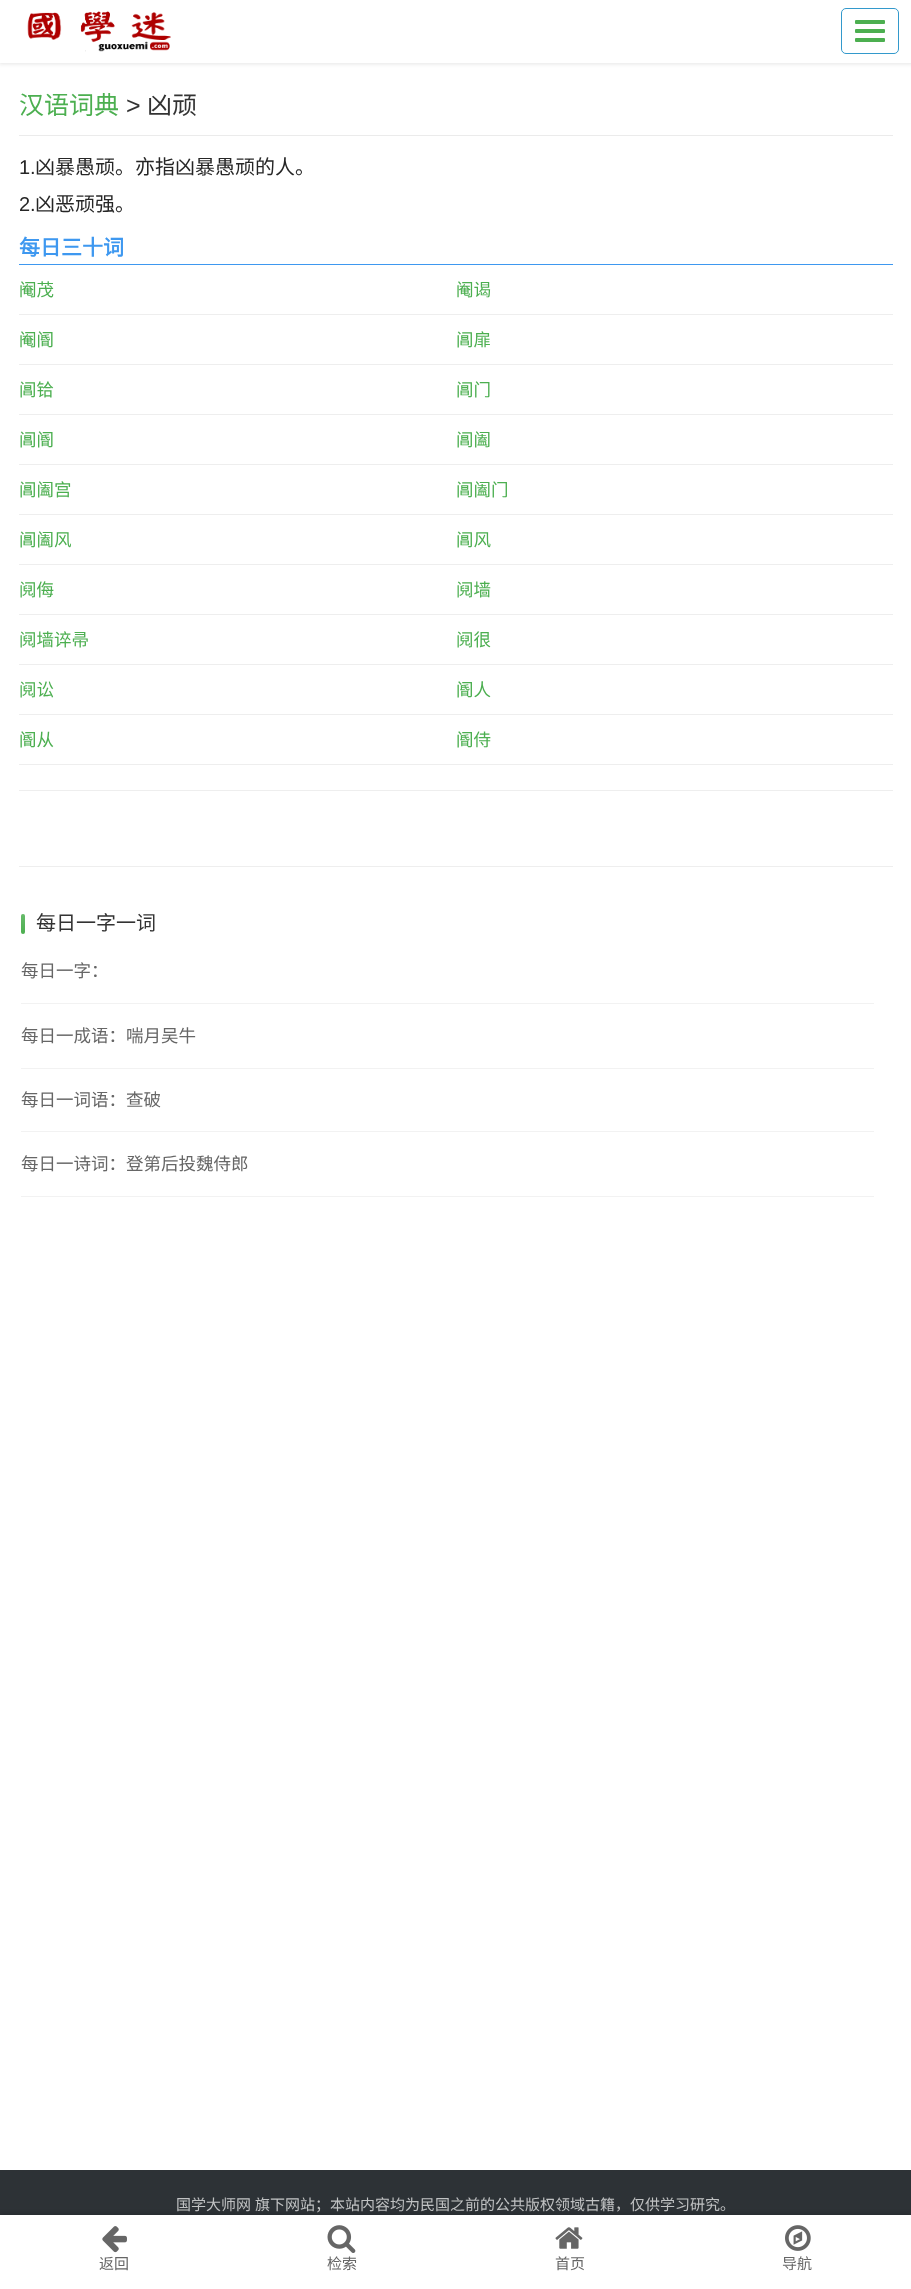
async function draw(canvas) {
  canvas.width = 911
  canvas.height = 2289
  const ctx = canvas.getContext('2d')
  ctx.miterLimit = 4
  ctx.fontKerning = 'normal'
  async function loadImage(src) {
    const img = new Image()
    img.src = src
    await img.decode()
    return img
  }
  let gradient

  ctx.fillStyle = '#fff'
  ctx.fillRect(0, 0, 911, 2289)
  ctx.fillStyle = '#0000001a'
  ctx.filter = 'blur(2px)'
  ctx.beginPath()
  ctx.rect(-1, -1, 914, 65)
  ctx.fill()
  ctx.filter = 'none'
  ctx.fillStyle = '#fff'
  ctx.fillRect(0, 0, 911, 63)
  ctx.drawImage(await loadImage('image0.png'), 27, 11, 144, 41)
  ctx.beginPath()
  ctx.roundRect(841.5, 8.5, 57, 45, 4.5)
  ctx.strokeStyle = '#39c'
  ctx.stroke()
  ctx.fillStyle = '#4caf50'
  ctx.beginPath()
  ctx.roundRect(855, 20, 30, 4, 1)
  ctx.fill()
  ctx.beginPath()
  ctx.roundRect(855, 29, 30, 4, 1)
  ctx.fill()
  ctx.beginPath()
  ctx.roundRect(855, 38, 30, 4, 1)
  ctx.fill()
  ctx.fillStyle = '#ebebeb'
  ctx.fillRect(19, 135, 874, 1)
  ctx.font = '25px Noto Sans CJK SC'
  ctx.fillStyle = '#4caf50'
  ctx.fillText('汉语词典', 19, 114)
  ctx.font = '25px Liberation Sans'
  ctx.fillStyle = '#333'
  ctx.fillText('>', 126, 114)
  ctx.font = '25px Noto Sans CJK SC'
  ctx.fillText('凶顽', 147, 114)
  ctx.font = '20px Liberation Sans'
  ctx.fillStyle = '#262626'
  ctx.fillText('1.', 19, 174)
  ctx.font = '20px Noto Sans CJK SC'
  ctx.fillText('凶暴愚顽。亦指凶暴愚顽的人。', 35, 174)
  ctx.font = '20px Liberation Sans'
  ctx.fillText('2.', 19, 211)
  ctx.font = '20px Noto Sans CJK SC'
  ctx.fillText('凶恶顽强。', 35, 211)
  ctx.fillStyle = '#3e98f0'
  ctx.fillRect(19, 264, 874, 1)
  ctx.font = 'bold 21px Noto Sans CJK SC'
  ctx.fillText('每日三十词', 19, 255)
  ctx.fillStyle = '#eee'
  ctx.fillRect(19, 314, 874, 1)
  ctx.font = '17.5px Noto Sans CJK SC'
  ctx.fillStyle = '#4caf50'
  ctx.fillText('阉茂', 19, 296)
  ctx.fillText('阉谒', 456, 296)
  ctx.fillStyle = '#eee'
  ctx.fillRect(19, 364, 874, 1)
  ctx.fillStyle = '#4caf50'
  ctx.fillText('阉阍', 19, 346)
  ctx.fillText('阊扉', 456, 346)
  ctx.fillStyle = '#eee'
  ctx.fillRect(19, 414, 874, 1)
  ctx.fillStyle = '#4caf50'
  ctx.fillText('阊铪', 19, 396)
  ctx.fillText('阊门', 456, 396)
  ctx.fillStyle = '#eee'
  ctx.fillRect(19, 464, 874, 1)
  ctx.fillStyle = '#4caf50'
  ctx.fillText('阊阍', 19, 446)
  ctx.fillText('阊阖', 456, 446)
  ctx.fillStyle = '#eee'
  ctx.fillRect(19, 514, 874, 1)
  ctx.fillStyle = '#4caf50'
  ctx.fillText('阊阖宫', 19, 496)
  ctx.fillText('阊阖门', 456, 496)
  ctx.fillStyle = '#eee'
  ctx.fillRect(19, 564, 874, 1)
  ctx.fillStyle = '#4caf50'
  ctx.fillText('阊阖风', 19, 546)
  ctx.fillText('阊风', 456, 546)
  ctx.fillStyle = '#eee'
  ctx.fillRect(19, 614, 874, 1)
  ctx.fillStyle = '#4caf50'
  ctx.fillText('阋侮', 19, 596)
  ctx.fillText('阋墙', 456, 596)
  ctx.fillStyle = '#eee'
  ctx.fillRect(19, 664, 874, 1)
  ctx.fillStyle = '#4caf50'
  ctx.fillText('阋墙谇帚', 19, 646)
  ctx.fillText('阋很', 456, 646)
  ctx.fillStyle = '#eee'
  ctx.fillRect(19, 714, 874, 1)
  ctx.fillStyle = '#4caf50'
  ctx.fillText('阋讼', 19, 696)
  ctx.fillText('阍人', 456, 696)
  ctx.fillStyle = '#eee'
  ctx.fillRect(19, 764, 874, 1)
  ctx.fillStyle = '#4caf50'
  ctx.fillText('阍从', 19, 746)
  ctx.fillText('阍侍', 456, 746)
  ctx.fillStyle = '#eee'
  ctx.fillRect(19, 790, 874, 1)
  ctx.fillRect(19, 866, 874, 1)
  ctx.fillStyle = '#4caf50'
  ctx.beginPath()
  ctx.roundRect(21, 914, 4, 20, 2)
  ctx.fill()
  gradient = ctx.createLinearGradient(23, 914, 23, 934)
  gradient.addColorStop(0, '#ffffff26')
  gradient.addColorStop(1, '#ffffff00')
  ctx.fillStyle = gradient
  ctx.beginPath()
  ctx.roundRect(21, 914, 4, 20, 2)
  ctx.fill()
  ctx.font = '20px Noto Sans CJK SC'
  ctx.fillStyle = '#333'
  ctx.fillText('每日一字一词', 36, 930)
  ctx.fillStyle = '#f2f2f2'
  ctx.fillRect(21, 1003, 853, 1)
  ctx.font = '17.5px Noto Sans CJK SC'
  ctx.fillStyle = '#666'
  ctx.fillText('每日一字：', 21, 977)
  ctx.fillStyle = '#f2f2f2'
  ctx.fillRect(21, 1068, 853, 1)
  ctx.fillStyle = '#666'
  ctx.fillText('每日一成语：喘月吴牛', 21, 1042)
  ctx.fillStyle = '#f2f2f2'
  ctx.fillRect(21, 1131, 853, 1)
  ctx.fillStyle = '#666'
  ctx.fillText('每日一词语：查破', 21, 1106)
  ctx.fillStyle = '#f2f2f2'
  ctx.fillRect(21, 1196, 853, 1)
  ctx.fillStyle = '#666'
  ctx.fillText('每日一诗词：登第后投魏侍郎', 21, 1170)
  ctx.fillStyle = '#2d3236'
  ctx.fillRect(0, 2170, 911, 45)
  ctx.font = '15px Noto Sans CJK SC'
  ctx.fillStyle = '#c0c2c3'
  ctx.fillText('国学大师网', 176, 2210)
  ctx.fillText('旗下网站；本站内容均为民国之前的公共版权领域古籍，仅供学习研究。', 255, 2210)
  ctx.fillStyle = '#0000001f'
  ctx.filter = 'blur(2px)'
  ctx.beginPath()
  ctx.rect(0, 2213, 911, 75)
  ctx.fill()
  ctx.filter = 'none'
  ctx.fillStyle = '#fff'
  ctx.fillRect(0, 2215, 911, 74)
  ctx.drawImage(await loadImage('image1.png'), 102, 2226, 25, 27)
  ctx.fillStyle = '#666'
  ctx.fillText('返回', 99, 2269)
  ctx.drawImage(await loadImage('image2.png'), 327, 2225, 29, 28)
  ctx.fillText('检索', 327, 2269)
  ctx.drawImage(await loadImage('image3.png'), 555, 2227, 28, 22)
  ctx.fillText('首页', 555, 2269)
  ctx.drawImage(await loadImage('image4.png'), 785, 2225, 26, 26)
  ctx.fillText('导航', 782, 2269)
}

draw(document.querySelector('canvas'))
